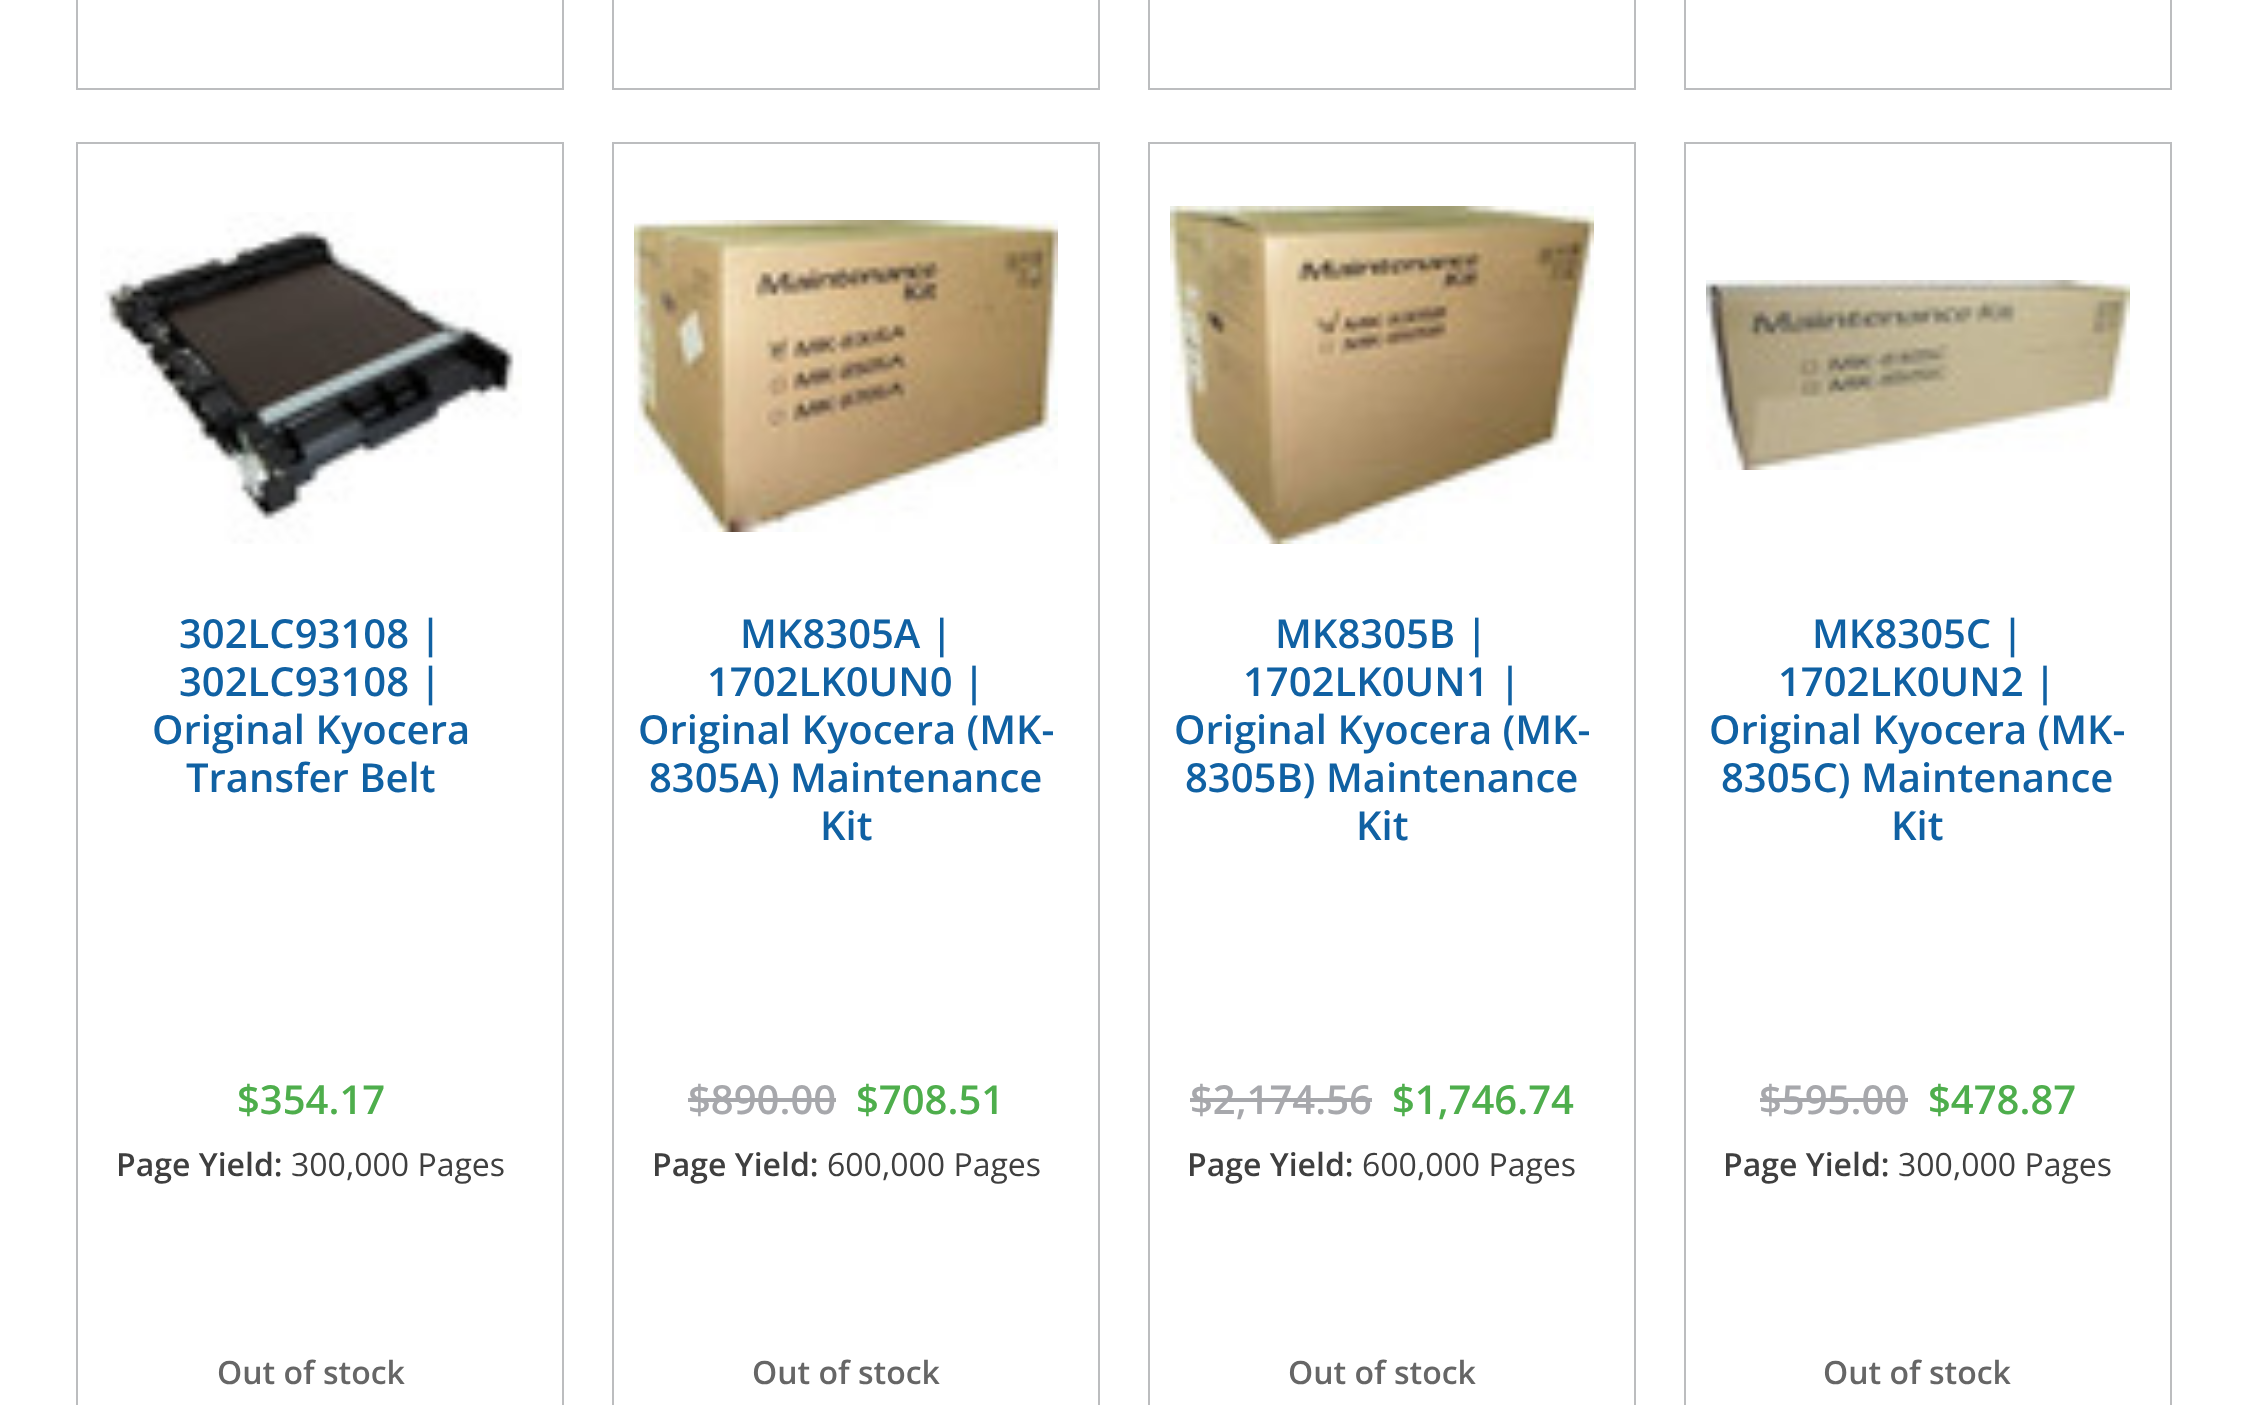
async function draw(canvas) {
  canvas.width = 2248
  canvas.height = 1405
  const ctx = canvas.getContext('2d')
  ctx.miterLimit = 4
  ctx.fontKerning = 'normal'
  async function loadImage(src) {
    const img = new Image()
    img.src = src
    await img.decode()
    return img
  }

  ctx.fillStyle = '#fff'
  ctx.fillRect(0, 0, 2248, 1405)
  ctx.strokeStyle = '#bcbdbf'
  ctx.lineWidth = 2
  ctx.strokeRect(77, -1, 486, 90)
  ctx.strokeRect(613, -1, 486, 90)
  ctx.strokeRect(1149, -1, 486, 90)
  ctx.strokeRect(1685, -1, 486, 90)
  ctx.strokeRect(77, 143, 486, 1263)
  ctx.drawImage(await loadImage('image0.png'), 100, 212, 422, 332)
  ctx.font = '600 40px Open Sans'
  ctx.fillStyle = '#1061a3'
  ctx.fillText('302LC93108 |', 179, 648)
  ctx.fillText('302LC93108 |', 179, 696)
  ctx.fillText('Original Kyocera', 152, 744)
  ctx.fillText('Transfer Belt', 186, 792)
  ctx.fillStyle = '#4eae4c'
  ctx.fillText('$354.17', 237, 1114)
  ctx.font = '600 32px Open Sans'
  ctx.fillStyle = '#3f3f3f'
  ctx.fillText('Page Yield:', 116, 1176)
  ctx.font = '32px Open Sans'
  ctx.fillText('300,000 Pages', 291, 1176)
  ctx.font = '600 32px Open Sans'
  ctx.fillStyle = '#666'
  ctx.fillText('Out of stock', 217, 1384)
  ctx.strokeRect(613, 143, 486, 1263)
  ctx.drawImage(await loadImage('image1.png'), 634, 220, 424, 312)
  ctx.font = '600 40px Open Sans'
  ctx.fillStyle = '#1061a3'
  ctx.fillText('MK8305A |', 740, 648)
  ctx.fillText('1702LK0UN0 |', 707, 696)
  ctx.fillText('Original Kyocera (MK-', 638, 744)
  ctx.fillText('8305A) Maintenance', 649, 792)
  ctx.fillText('Kit', 820, 840)
  ctx.fillStyle = '#a7a8ac'
  ctx.fillText('$890.00', 688, 1114)
  ctx.fillRect(688, 1098, 148, 4)
  ctx.fillStyle = '#4eae4c'
  ctx.fillText('$708.51', 856, 1114)
  ctx.font = '600 32px Open Sans'
  ctx.fillStyle = '#3f3f3f'
  ctx.fillText('Page Yield:', 652, 1176)
  ctx.font = '32px Open Sans'
  ctx.fillText('600,000 Pages', 827, 1176)
  ctx.font = '600 32px Open Sans'
  ctx.fillStyle = '#666'
  ctx.fillText('Out of stock', 752, 1384)
  ctx.strokeRect(1149, 143, 486, 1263)
  ctx.drawImage(await loadImage('image2.png'), 1170, 206, 424, 338)
  ctx.font = '600 40px Open Sans'
  ctx.fillStyle = '#1061a3'
  ctx.fillText('MK8305B |', 1275, 648)
  ctx.fillText('1702LK0UN1 |', 1243, 696)
  ctx.fillText('Original Kyocera (MK-', 1174, 744)
  ctx.fillText('8305B) Maintenance', 1185, 792)
  ctx.fillText('Kit', 1356, 840)
  ctx.fillStyle = '#a7a8ac'
  ctx.fillText('$2,174.56', 1190, 1114)
  ctx.fillRect(1190, 1098, 182, 4)
  ctx.fillStyle = '#4eae4c'
  ctx.fillText('$1,746.74', 1392, 1114)
  ctx.font = '600 32px Open Sans'
  ctx.fillStyle = '#3f3f3f'
  ctx.fillText('Page Yield:', 1187, 1176)
  ctx.font = '32px Open Sans'
  ctx.fillText('600,000 Pages', 1362, 1176)
  ctx.font = '600 32px Open Sans'
  ctx.fillStyle = '#666'
  ctx.fillText('Out of stock', 1288, 1384)
  ctx.strokeRect(1685, 143, 486, 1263)
  ctx.drawImage(await loadImage('image3.png'), 1706, 280, 424, 190)
  ctx.font = '600 40px Open Sans'
  ctx.fillStyle = '#1061a3'
  ctx.fillText('MK8305C |', 1812, 648)
  ctx.fillText('1702LK0UN2 |', 1778, 696)
  ctx.fillText('Original Kyocera (MK-', 1709, 744)
  ctx.fillText('8305C) Maintenance', 1721, 792)
  ctx.fillText('Kit', 1891, 840)
  ctx.fillStyle = '#a7a8ac'
  ctx.fillText('$595.00', 1759, 1114)
  ctx.fillRect(1760, 1098, 148, 4)
  ctx.fillStyle = '#4eae4c'
  ctx.fillText('$478.87', 1928, 1114)
  ctx.font = '600 32px Open Sans'
  ctx.fillStyle = '#3f3f3f'
  ctx.fillText('Page Yield:', 1723, 1176)
  ctx.font = '32px Open Sans'
  ctx.fillText('300,000 Pages', 1898, 1176)
  ctx.font = '600 32px Open Sans'
  ctx.fillStyle = '#666'
  ctx.fillText('Out of stock', 1823, 1384)
}

draw(document.querySelector('canvas'))
